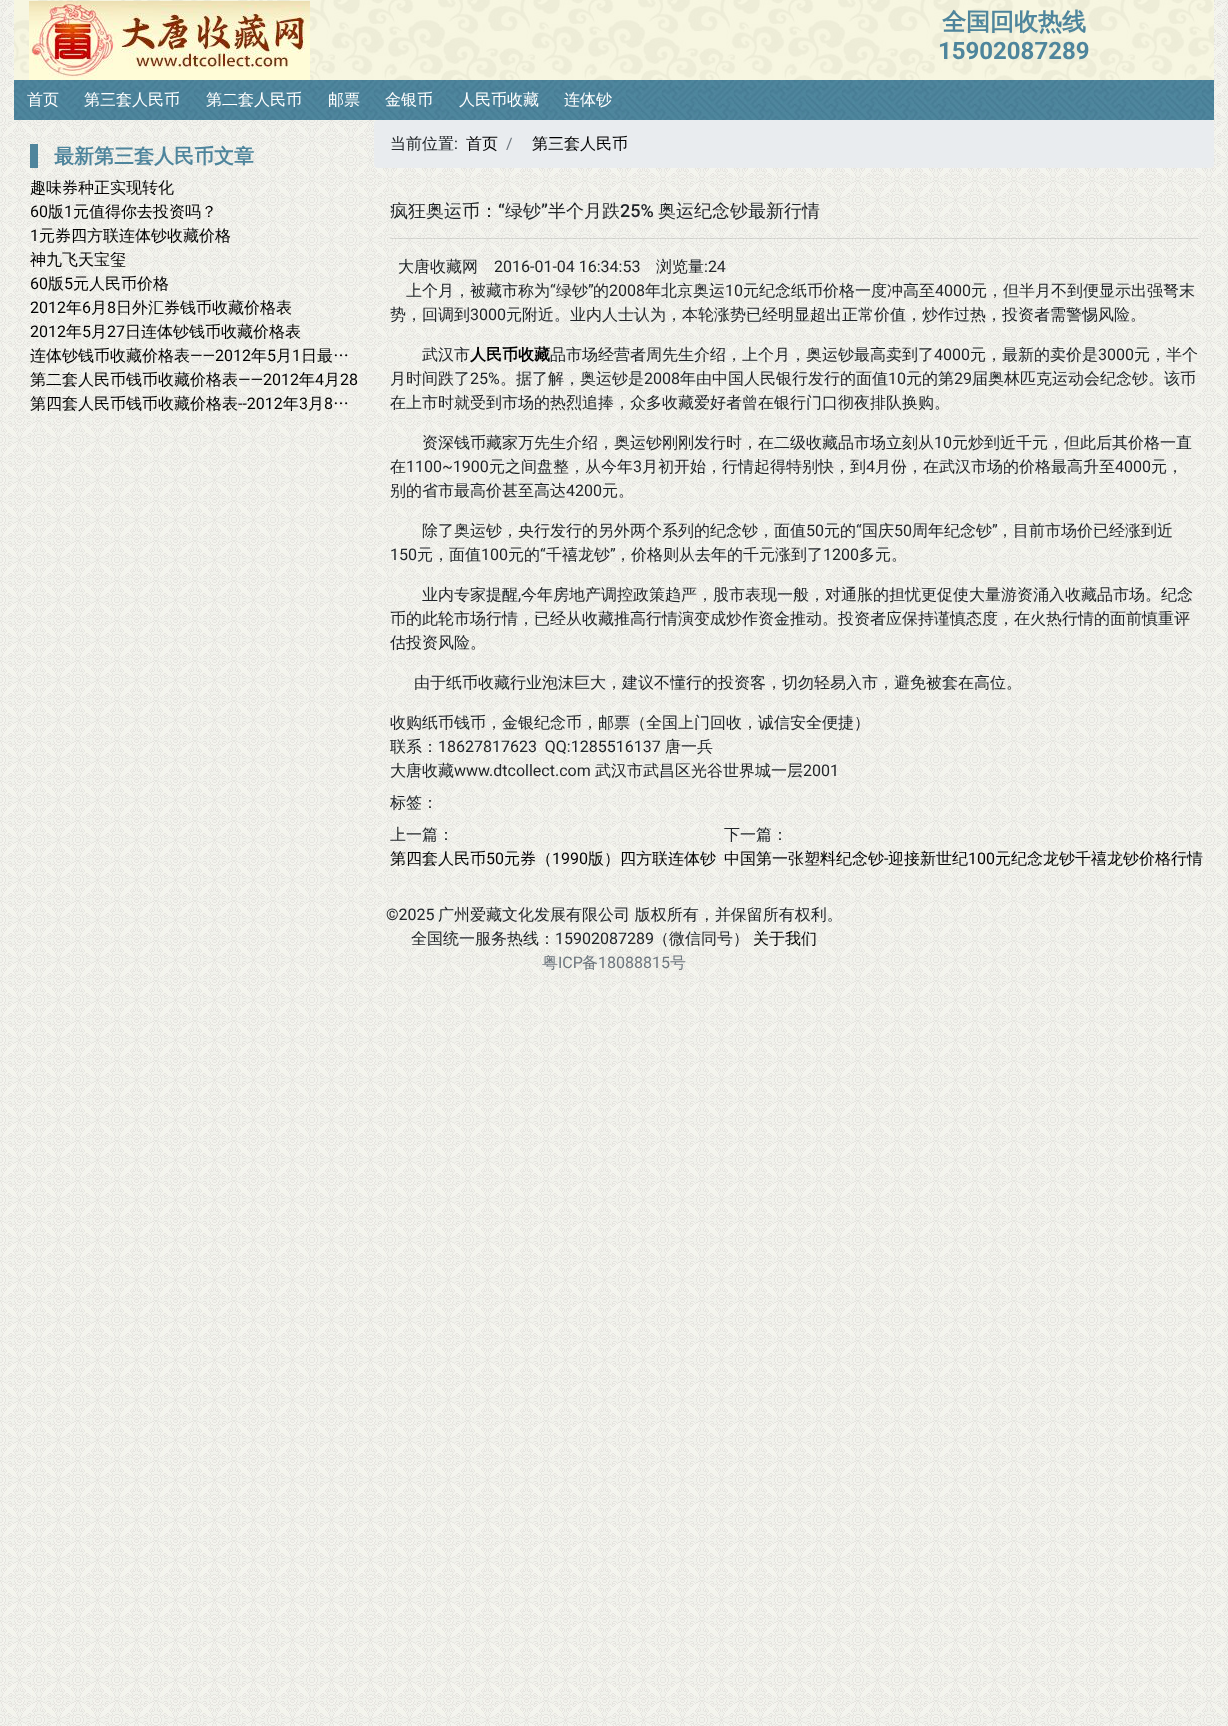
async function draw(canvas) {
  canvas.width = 1228
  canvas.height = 1726
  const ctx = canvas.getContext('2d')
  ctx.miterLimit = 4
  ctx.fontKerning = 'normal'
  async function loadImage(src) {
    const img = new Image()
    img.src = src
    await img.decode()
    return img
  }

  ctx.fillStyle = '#fff'
  ctx.fillRect(0, 0, 1228, 1726)
  ctx.drawImage(await loadImage('image0.png'), 0, 0, 1228, 1726)
  ctx.drawImage(await loadImage('image1.png'), 14, 0, 1200, 80)
  ctx.drawImage(await loadImage('image2.png'), 29, 1, 281, 79)
  ctx.font = 'bold 24px WenQuanYi Zen Hei'
  ctx.fillStyle = '#4e859c'
  ctx.fillText('全国回收热线', 942, 30)
  ctx.font = 'bold 24px Roboto'
  ctx.fillText('15902087289', 938, 59)
  ctx.drawImage(await loadImage('image3.png'), 14, 80, 1200, 40)
  ctx.font = '500 16px WenQuanYi Zen Hei'
  ctx.fillStyle = '#fff'
  ctx.fillText('首页', 27, 105)
  ctx.fillText('第三套人民币', 84, 105)
  ctx.fillText('第二套人民币', 206, 105)
  ctx.fillText('邮票', 328, 105)
  ctx.fillText('金银币', 385, 105)
  ctx.fillText('人民币收藏', 459, 105)
  ctx.fillText('连体钞', 564, 105)
  ctx.fillStyle = '#4e859c'
  ctx.fillRect(30, 144, 8, 24)
  ctx.font = 'bold 20px WenQuanYi Zen Hei'
  ctx.fillText('最新第三套人民币文章', 54, 163)
  ctx.font = '500 16px WenQuanYi Zen Hei'
  ctx.fillStyle = '#000'
  ctx.fillText('趣味券种正实现转化', 30, 193)
  ctx.font = '16px Roboto'
  ctx.fillText('60', 30, 217)
  ctx.font = '500 16px WenQuanYi Zen Hei'
  ctx.fillText('版', 48, 217)
  ctx.font = '16px Roboto'
  ctx.fillText('1', 64, 217)
  ctx.font = '500 16px WenQuanYi Zen Hei'
  ctx.fillText('元值得你去投资吗？', 73, 217)
  ctx.font = '16px Roboto'
  ctx.fillText('1', 30, 241)
  ctx.font = '500 16px WenQuanYi Zen Hei'
  ctx.fillText('元券四方联连体钞收藏价格', 39, 241)
  ctx.fillText('神九飞天宝玺', 30, 265)
  ctx.font = '16px Roboto'
  ctx.fillText('60', 30, 289)
  ctx.font = '500 16px WenQuanYi Zen Hei'
  ctx.fillText('版', 48, 289)
  ctx.font = '16px Roboto'
  ctx.fillText('5', 64, 289)
  ctx.font = '500 16px WenQuanYi Zen Hei'
  ctx.fillText('元人民币价格', 73, 289)
  ctx.font = '16px Roboto'
  ctx.fillText('2012', 30, 313)
  ctx.font = '500 16px WenQuanYi Zen Hei'
  ctx.fillText('年', 66, 313)
  ctx.font = '16px Roboto'
  ctx.fillText('6', 82, 313)
  ctx.font = '500 16px WenQuanYi Zen Hei'
  ctx.fillText('月', 91, 313)
  ctx.font = '16px Roboto'
  ctx.fillText('8', 107, 313)
  ctx.font = '500 16px WenQuanYi Zen Hei'
  ctx.fillText('日外汇券钱币收藏价格表', 116, 313)
  ctx.font = '16px Roboto'
  ctx.fillText('2012', 30, 337)
  ctx.font = '500 16px WenQuanYi Zen Hei'
  ctx.fillText('年', 66, 337)
  ctx.font = '16px Roboto'
  ctx.fillText('5', 82, 337)
  ctx.font = '500 16px WenQuanYi Zen Hei'
  ctx.fillText('月', 91, 337)
  ctx.font = '16px Roboto'
  ctx.fillText('27', 107, 337)
  ctx.font = '500 16px WenQuanYi Zen Hei'
  ctx.fillText('日连体钞钱币收藏价格表', 125, 337)
  ctx.fillText('连体钞钱币收藏价格表', 30, 361)
  ctx.font = '16px Roboto'
  ctx.fillText('——2012', 190, 361)
  ctx.font = '500 16px WenQuanYi Zen Hei'
  ctx.fillText('年', 251, 361)
  ctx.font = '16px Roboto'
  ctx.fillText('5', 267, 361)
  ctx.font = '500 16px WenQuanYi Zen Hei'
  ctx.fillText('月', 276, 361)
  ctx.font = '16px Roboto'
  ctx.fillText('1', 292, 361)
  ctx.font = '500 16px WenQuanYi Zen Hei'
  ctx.fillText('日最…', 301, 361)
  ctx.fillText('第二套人民币钱币收藏价格表', 30, 385)
  ctx.font = '16px Roboto'
  ctx.fillText('——2012', 238, 385)
  ctx.font = '500 16px WenQuanYi Zen Hei'
  ctx.fillText('年', 299, 385)
  ctx.font = '16px Roboto'
  ctx.fillText('4', 315, 385)
  ctx.font = '500 16px WenQuanYi Zen Hei'
  ctx.fillText('月', 324, 385)
  ctx.font = '16px Roboto'
  ctx.fillText('28', 340, 385)
  ctx.font = '500 16px WenQuanYi Zen Hei'
  ctx.fillText('第四套人民币钱币收藏价格表', 30, 409)
  ctx.font = '16px Roboto'
  ctx.fillText('--2012', 238, 409)
  ctx.font = '500 16px WenQuanYi Zen Hei'
  ctx.fillText('年', 283, 409)
  ctx.font = '16px Roboto'
  ctx.fillText('3', 299, 409)
  ctx.font = '500 16px WenQuanYi Zen Hei'
  ctx.fillText('月', 308, 409)
  ctx.font = '16px Roboto'
  ctx.fillText('8', 324, 409)
  ctx.font = '500 16px WenQuanYi Zen Hei'
  ctx.fillText('…', 333, 409)
  ctx.fillStyle = '#e9ecef'
  ctx.beginPath()
  ctx.roundRect(374, 120, 840, 48, 4)
  ctx.fill()
  ctx.fillStyle = '#212529'
  ctx.fillText('当前位置', 390, 149)
  ctx.font = '16px Roboto'
  ctx.fillText(':', 454, 149)
  ctx.font = '500 16px WenQuanYi Zen Hei'
  ctx.fillStyle = '#000'
  ctx.fillText('首页', 466, 149)
  ctx.font = '16px Roboto'
  ctx.fillStyle = '#6c757d'
  ctx.fillText('/', 506, 149)
  ctx.font = '500 16px WenQuanYi Zen Hei'
  ctx.fillStyle = '#000'
  ctx.fillText('第三套人民币', 532, 149)
  ctx.font = '500 18px WenQuanYi Zen Hei'
  ctx.fillStyle = '#212529'
  ctx.fillText('疯狂奥运币：', 390, 217)
  ctx.font = '500 18px Roboto'
  ctx.fillText('“', 498, 217)
  ctx.font = '500 18px WenQuanYi Zen Hei'
  ctx.fillText('绿钞', 505, 217)
  ctx.font = '500 18px Roboto'
  ctx.fillText('”', 541, 217)
  ctx.font = '500 18px WenQuanYi Zen Hei'
  ctx.fillText('半个月跌', 548, 217)
  ctx.font = '500 18px Roboto'
  ctx.fillText('25%', 620, 217)
  ctx.font = '500 18px WenQuanYi Zen Hei'
  ctx.fillText('奥运纪念钞最新行情', 658, 217)
  ctx.fillStyle = '#0000001a'
  ctx.fillRect(390, 238, 808, 1)
  ctx.font = '500 16px WenQuanYi Zen Hei'
  ctx.fillStyle = '#212529'
  ctx.fillText('大唐收藏网', 398, 272)
  ctx.font = '16px Roboto'
  ctx.fillText('2016-01-04 16:34:53', 494, 272)
  ctx.font = '500 16px WenQuanYi Zen Hei'
  ctx.fillText('浏览量', 656, 272)
  ctx.font = '16px Roboto'
  ctx.fillText(':24', 704, 272)
  ctx.font = '500 16px WenQuanYi Zen Hei'
  ctx.fillText('上个月，被藏市称为', 406, 296)
  ctx.font = '16px Roboto'
  ctx.fillText('“', 550, 296)
  ctx.font = '500 16px WenQuanYi Zen Hei'
  ctx.fillText('绿钞', 556, 296)
  ctx.font = '16px Roboto'
  ctx.fillText('”', 588, 296)
  ctx.font = '500 16px WenQuanYi Zen Hei'
  ctx.fillText('的', 593, 296)
  ctx.font = '16px Roboto'
  ctx.fillText('2008', 609, 296)
  ctx.font = '500 16px WenQuanYi Zen Hei'
  ctx.fillText('年北京奥运', 645, 296)
  ctx.font = '16px Roboto'
  ctx.fillText('10', 725, 296)
  ctx.font = '500 16px WenQuanYi Zen Hei'
  ctx.fillText('元纪念纸币价格一度冲高至', 743, 296)
  ctx.font = '16px Roboto'
  ctx.fillText('4000', 935, 296)
  ctx.font = '500 16px WenQuanYi Zen Hei'
  ctx.fillText('元，但半月不到便显示出强弩末', 971, 296)
  ctx.fillText('势，回调到', 390, 320)
  ctx.font = '16px Roboto'
  ctx.fillText('3000', 470, 320)
  ctx.font = '500 16px WenQuanYi Zen Hei'
  ctx.fillText('元附近。业内人士认为，本轮涨势已经明显超出正常价值，炒作过热，投资者需警惕风险。', 506, 320)
  ctx.fillText('武汉市', 422, 360)
  ctx.font = 'bold 16px WenQuanYi Zen Hei'
  ctx.fillStyle = '#000'
  ctx.fillText('人民币收藏', 470, 360)
  ctx.font = '500 16px WenQuanYi Zen Hei'
  ctx.fillStyle = '#212529'
  ctx.fillText('品市场经营者周先生介绍，上个月，奥运钞最高卖到了', 550, 360)
  ctx.font = '16px Roboto'
  ctx.fillText('4000', 934, 360)
  ctx.font = '500 16px WenQuanYi Zen Hei'
  ctx.fillText('元，最新的卖价是', 970, 360)
  ctx.font = '16px Roboto'
  ctx.fillText('3000', 1098, 360)
  ctx.font = '500 16px WenQuanYi Zen Hei'
  ctx.fillText('元，半个', 1134, 360)
  ctx.fillText('月时间跌了', 390, 384)
  ctx.font = '16px Roboto'
  ctx.fillText('25%', 470, 384)
  ctx.font = '500 16px WenQuanYi Zen Hei'
  ctx.fillText('。据了解，奥运钞是', 500, 384)
  ctx.font = '16px Roboto'
  ctx.fillText('2008', 644, 384)
  ctx.font = '500 16px WenQuanYi Zen Hei'
  ctx.fillText('年由中国人民银行发行的面值', 680, 384)
  ctx.font = '16px Roboto'
  ctx.fillText('10', 888, 384)
  ctx.font = '500 16px WenQuanYi Zen Hei'
  ctx.fillText('元的第', 906, 384)
  ctx.font = '16px Roboto'
  ctx.fillText('29', 954, 384)
  ctx.font = '500 16px WenQuanYi Zen Hei'
  ctx.fillText('届奥林匹克运动会纪念钞。该币', 972, 384)
  ctx.fillText('在上市时就受到市场的热烈追捧，众多收藏爱好者曾在银行门口彻夜排队换购。', 390, 408)
  ctx.fillText('资深钱币藏家万先生介绍，奥运钞刚刚发行时，在二级收藏品市场立刻从', 422, 448)
  ctx.font = '16px Roboto'
  ctx.fillText('10', 934, 448)
  ctx.font = '500 16px WenQuanYi Zen Hei'
  ctx.fillText('元炒到近千元，但此后其价格一直', 952, 448)
  ctx.fillText('在', 390, 472)
  ctx.font = '16px Roboto'
  ctx.fillText('1100~1900', 406, 472)
  ctx.font = '500 16px WenQuanYi Zen Hei'
  ctx.fillText('元之间盘整，从今年', 489, 472)
  ctx.font = '16px Roboto'
  ctx.fillText('3', 633, 472)
  ctx.font = '500 16px WenQuanYi Zen Hei'
  ctx.fillText('月初开始，行情起得特别快，到', 642, 472)
  ctx.font = '16px Roboto'
  ctx.fillText('4', 866, 472)
  ctx.font = '500 16px WenQuanYi Zen Hei'
  ctx.fillText('月份，在武汉市场的价格最高升至', 875, 472)
  ctx.font = '16px Roboto'
  ctx.fillText('4000', 1115, 472)
  ctx.font = '500 16px WenQuanYi Zen Hei'
  ctx.fillText('元，', 1151, 472)
  ctx.fillText('别的省市最高价甚至高达', 390, 496)
  ctx.font = '16px Roboto'
  ctx.fillText('4200', 566, 496)
  ctx.font = '500 16px WenQuanYi Zen Hei'
  ctx.fillText('元。', 602, 496)
  ctx.fillText('除了奥运钞，央行发行的另外两个系列的纪念钞，面值', 422, 536)
  ctx.font = '16px Roboto'
  ctx.fillText('50', 806, 536)
  ctx.font = '500 16px WenQuanYi Zen Hei'
  ctx.fillText('元的', 824, 536)
  ctx.font = '16px Roboto'
  ctx.fillText('“', 856, 536)
  ctx.font = '500 16px WenQuanYi Zen Hei'
  ctx.fillText('国庆', 862, 536)
  ctx.font = '16px Roboto'
  ctx.fillText('50', 894, 536)
  ctx.font = '500 16px WenQuanYi Zen Hei'
  ctx.fillText('周年纪念钞', 912, 536)
  ctx.font = '16px Roboto'
  ctx.fillText('”', 992, 536)
  ctx.font = '500 16px WenQuanYi Zen Hei'
  ctx.fillText('，目前市场价已经涨到近', 997, 536)
  ctx.font = '16px Roboto'
  ctx.fillText('150', 390, 560)
  ctx.font = '500 16px WenQuanYi Zen Hei'
  ctx.fillText('元，面值', 417, 560)
  ctx.font = '16px Roboto'
  ctx.fillText('100', 481, 560)
  ctx.font = '500 16px WenQuanYi Zen Hei'
  ctx.fillText('元的', 508, 560)
  ctx.font = '16px Roboto'
  ctx.fillText('“', 540, 560)
  ctx.font = '500 16px WenQuanYi Zen Hei'
  ctx.fillText('千禧龙钞', 546, 560)
  ctx.font = '16px Roboto'
  ctx.fillText('”', 610, 560)
  ctx.font = '500 16px WenQuanYi Zen Hei'
  ctx.fillText('，价格则从去年的千元涨到了', 615, 560)
  ctx.font = '16px Roboto'
  ctx.fillText('1200', 823, 560)
  ctx.font = '500 16px WenQuanYi Zen Hei'
  ctx.fillText('多元。', 859, 560)
  ctx.fillText('业内专家提醒', 422, 600)
  ctx.font = '16px Roboto'
  ctx.fillText(',', 518, 600)
  ctx.font = '500 16px WenQuanYi Zen Hei'
  ctx.fillText('今年房地产调控政策趋严，股市表现一般，对通胀的担忧更促使大量游资涌入收藏品市场。纪念', 521, 600)
  ctx.fillText('币的此轮市场行情，已经从收藏推高行情演变成炒作资金推动。投资者应保持谨慎态度，在火热行情的面前慎重评', 390, 624)
  ctx.fillText('估投资风险。', 390, 648)
  ctx.fillText('由于纸币收藏行业泡沫巨大，建议不懂行的投资客，切勿轻易入市，避免被套在高位。', 414, 688)
  ctx.fillText('收购纸币钱币，金银纪念币，邮票（全国上门回收，诚信安全便捷）', 390, 728)
  ctx.fillText('联系：', 390, 752)
  ctx.font = '16px Roboto'
  ctx.fillText('18627817623  QQ:1285516137', 438, 752)
  ctx.font = '500 16px WenQuanYi Zen Hei'
  ctx.fillText('唐一兵', 665, 752)
  ctx.fillText('大唐收藏', 390, 776)
  ctx.font = '16px Roboto'
  ctx.fillText('www.dtcollect.com', 454, 776)
  ctx.font = '500 16px WenQuanYi Zen Hei'
  ctx.fillText('武汉市武昌区光谷世界城一层', 595, 776)
  ctx.font = '16px Roboto'
  ctx.fillText('2001', 803, 776)
  ctx.font = '500 16px WenQuanYi Zen Hei'
  ctx.fillText('标签：', 390, 808)
  ctx.fillText('上一篇：', 390, 840)
  ctx.fillStyle = '#000'
  ctx.fillText('第四套人民币', 390, 864)
  ctx.font = '16px Roboto'
  ctx.fillText('50', 486, 864)
  ctx.font = '500 16px WenQuanYi Zen Hei'
  ctx.fillText('元券（', 504, 864)
  ctx.font = '16px Roboto'
  ctx.fillText('1990', 552, 864)
  ctx.font = '500 16px WenQuanYi Zen Hei'
  ctx.fillText('版）四方联连体钞', 588, 864)
  ctx.fillStyle = '#212529'
  ctx.fillText('下一篇：', 724, 840)
  ctx.fillStyle = '#000'
  ctx.fillText('中国第一张塑料纪念钞', 724, 864)
  ctx.font = '16px Roboto'
  ctx.fillText('-', 884, 864)
  ctx.font = '500 16px WenQuanYi Zen Hei'
  ctx.fillText('迎接新世纪', 888, 864)
  ctx.font = '16px Roboto'
  ctx.fillText('100', 968, 864)
  ctx.font = '500 16px WenQuanYi Zen Hei'
  ctx.fillText('元纪念龙钞千禧龙钞价格行情', 995, 864)
  ctx.font = '16px Roboto'
  ctx.fillStyle = '#212529'
  ctx.fillText('©2025', 386, 920)
  ctx.font = '500 16px WenQuanYi Zen Hei'
  ctx.fillText('广州爱藏文化发展有限公司 版权所有，并保留所有权利。', 438, 920)
  ctx.fillText('全国统一服务热线：', 411, 944)
  ctx.font = '16px Roboto'
  ctx.fillText('15902087289', 555, 944)
  ctx.font = '500 16px WenQuanYi Zen Hei'
  ctx.fillText('（微信同号）', 653, 944)
  ctx.fillStyle = '#000'
  ctx.fillText('关于我们', 753, 944)
  ctx.fillStyle = '#6c757d'
  ctx.fillText('粤', 542, 968)
  ctx.font = '16px Roboto'
  ctx.fillText('ICP', 558, 968)
  ctx.font = '500 16px WenQuanYi Zen Hei'
  ctx.fillText('备', 582, 968)
  ctx.font = '16px Roboto'
  ctx.fillText('18088815', 598, 968)
  ctx.font = '500 16px WenQuanYi Zen Hei'
  ctx.fillText('号', 670, 968)
}

draw(document.querySelector('canvas'))
